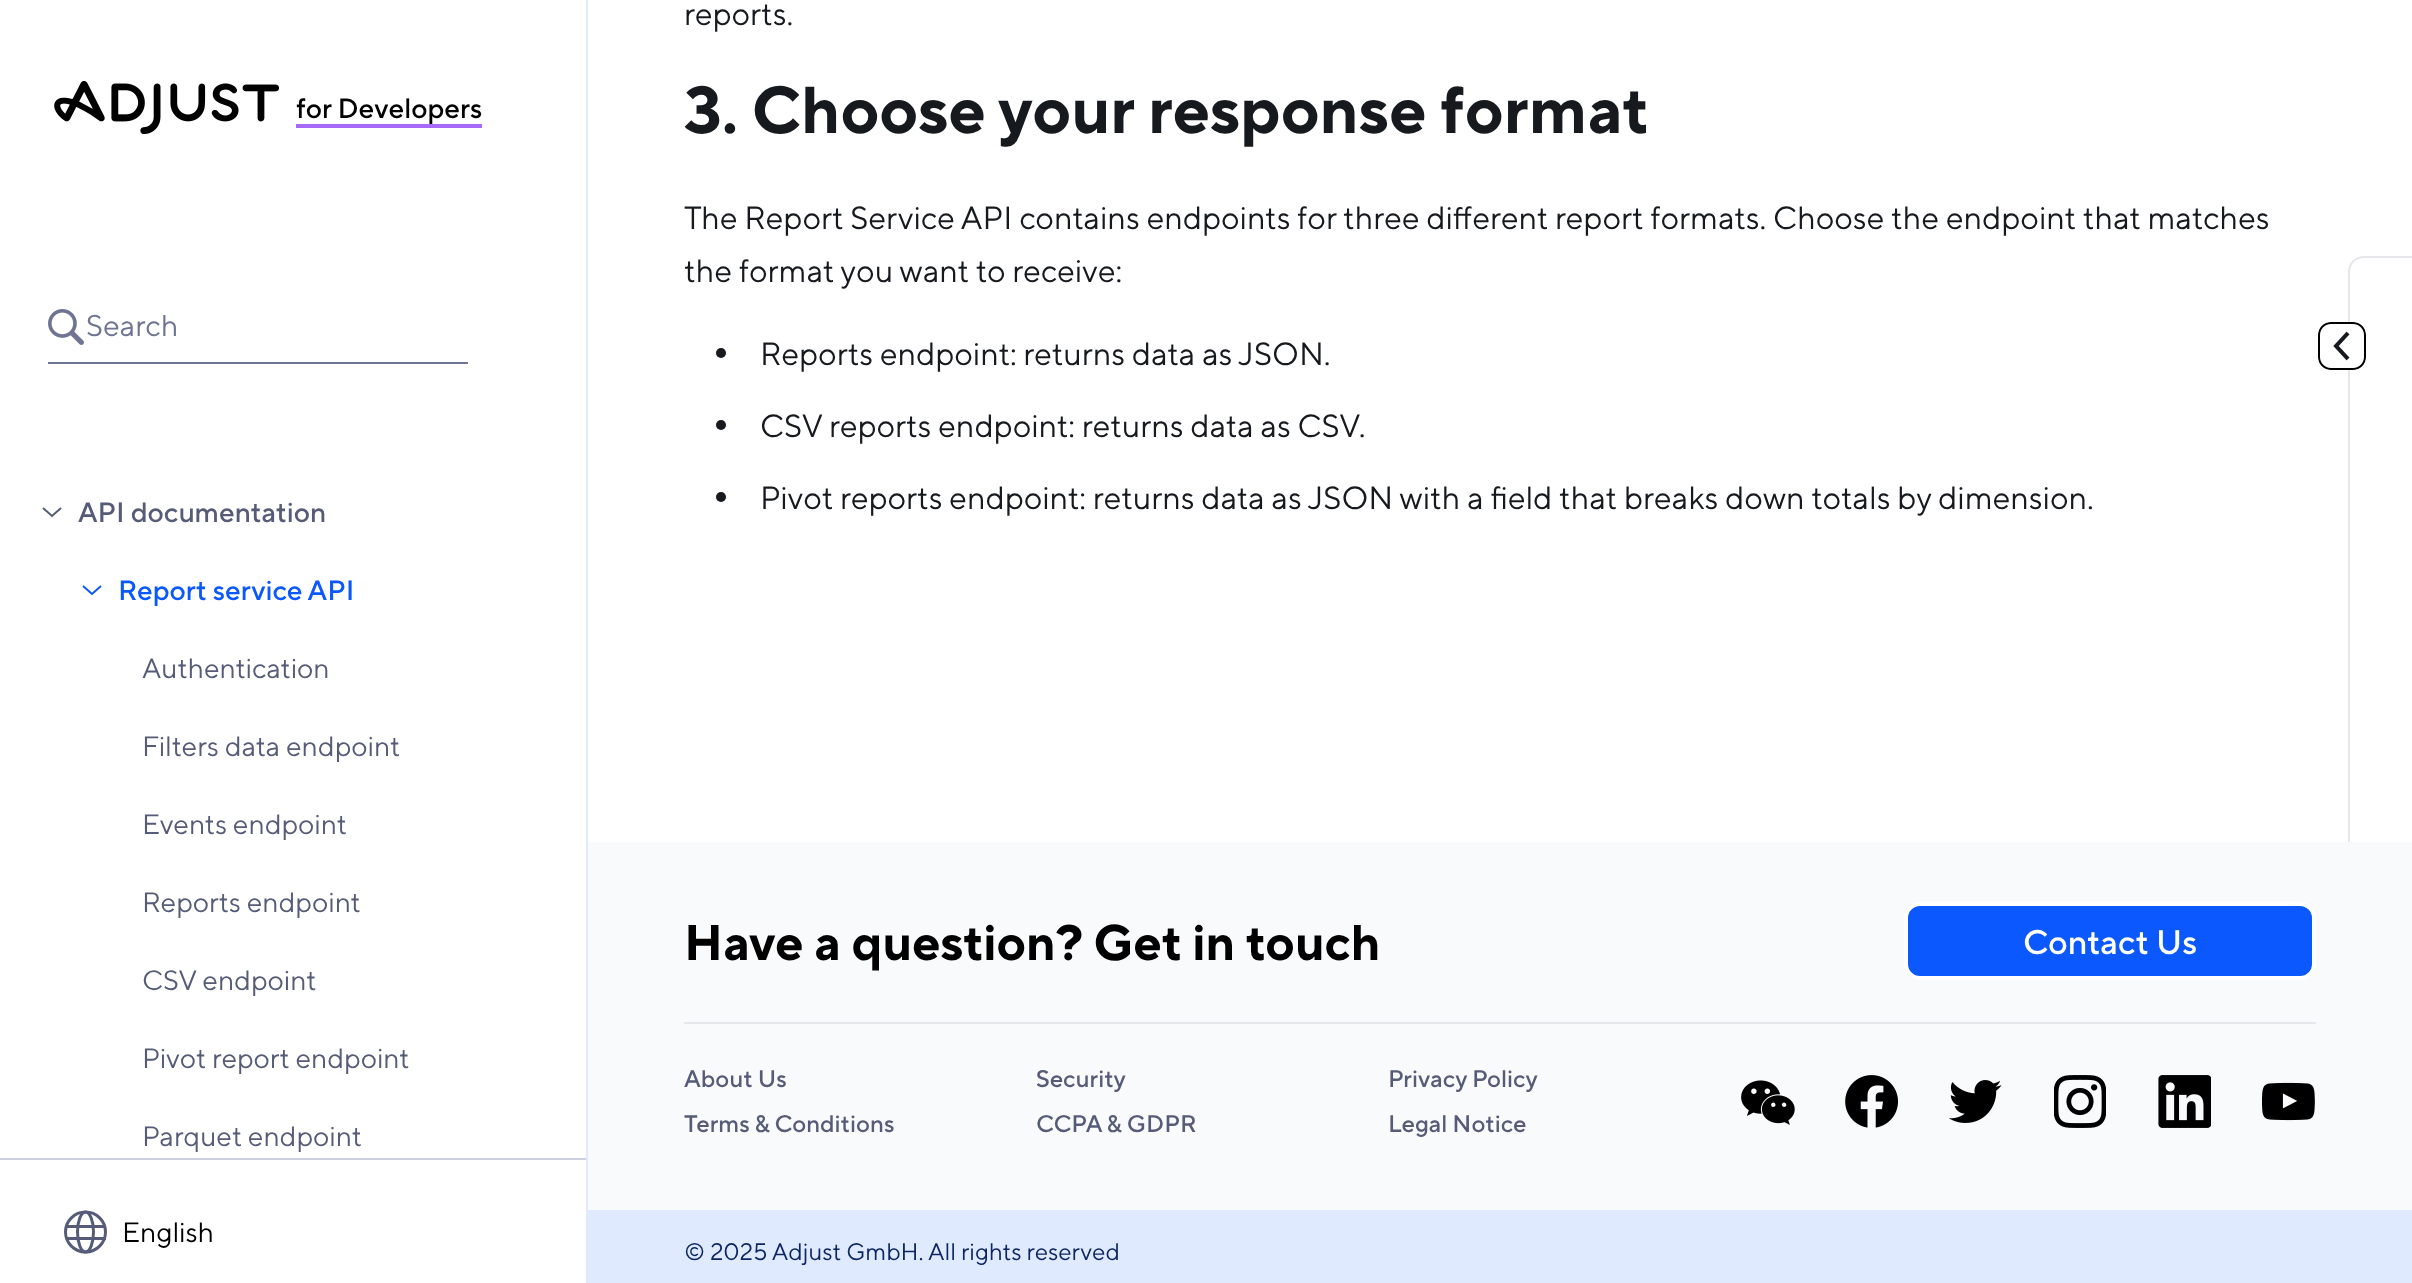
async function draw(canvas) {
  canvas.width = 2412
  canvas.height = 1283
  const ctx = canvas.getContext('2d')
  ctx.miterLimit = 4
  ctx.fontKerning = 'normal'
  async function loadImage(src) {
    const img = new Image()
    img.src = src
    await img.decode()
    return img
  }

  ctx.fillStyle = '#fff'
  ctx.fillRect(0, 0, 2412, 1283)
  ctx.fillStyle = '#e0eaff'
  ctx.fillRect(586, 0, 2, 1283)
  ctx.drawImage(await loadImage('image0.png'), 54, 81, 225, 54)
  ctx.font = '500 28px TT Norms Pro'
  ctx.fillStyle = '#000'
  ctx.fillText('for Developers', 296, 118)
  ctx.fillStyle = '#a96af9'
  ctx.fillRect(296, 124, 186, 4)
  ctx.fillStyle = '#6e7492'
  ctx.fillRect(48, 362, 420, 2)
  ctx.drawImage(await loadImage('image1.png'), 48, 309, 36, 36)
  ctx.font = '30px TT Norms Pro'
  ctx.fillText('Search', 86, 336)
  ctx.beginPath()
  ctx.moveTo(43, 508)
  ctx.lineTo(52, 516)
  ctx.lineTo(61, 508)
  ctx.strokeStyle = '#565c78'
  ctx.lineWidth = 2
  ctx.stroke()
  ctx.font = '500 28px TT Norms Pro'
  ctx.fillStyle = '#565c78'
  ctx.fillText('API documentation', 78, 522)
  ctx.beginPath()
  ctx.moveTo(83, 586)
  ctx.lineTo(92, 594)
  ctx.lineTo(101, 586)
  ctx.strokeStyle = '#0b58fe'
  ctx.stroke()
  ctx.fillStyle = '#0b58fe'
  ctx.fillText('Report service API', 118, 600)
  ctx.font = '28px TT Norms Pro'
  ctx.fillStyle = '#565c78'
  ctx.fillText('Authentication', 142, 678)
  ctx.fillText('Filters data endpoint', 142, 756)
  ctx.fillText('Events endpoint', 142, 834)
  ctx.fillText('Reports endpoint', 142, 912)
  ctx.fillText('CSV endpoint', 142, 990)
  ctx.fillText('Pivot report endpoint', 142, 1068)
  ctx.fillText('Parquet endpoint', 142, 1146)
  ctx.fillStyle = '#cdd0e0'
  ctx.fillRect(0, 1158, 586, 2)
  ctx.beginPath()
  ctx.arc(85.5, 1232, 20, 0, 2 * Math.PI)
  ctx.strokeStyle = '#565c78'
  ctx.lineWidth = 3
  ctx.stroke()
  ctx.beginPath()
  ctx.ellipse(85.5, 1232, 8, 20, 0, 0, 2 * Math.PI)
  ctx.stroke()
  ctx.fillStyle = '#565c78'
  ctx.fillRect(66, 1225, 40, 3)
  ctx.fillRect(66, 1237, 40, 3)
  ctx.fillStyle = '#000'
  ctx.fillText('English', 122, 1242)
  ctx.font = '32px TT Norms Pro'
  ctx.fillStyle = '#16191d'
  ctx.fillText('reports.', 684, 25)
  ctx.font = 'bold 66px TT Norms Pro'
  ctx.fillText('3. Choose your response format', 684, 133)
  ctx.font = '32px TT Norms Pro'
  ctx.fillText('The Report Service API contains endpoints for three different report formats. Choose the endpoint that matches', 684, 229)
  ctx.fillText('the format you want to receive:', 684, 282)
  ctx.beginPath()
  ctx.arc(721, 353, 5, 0, 2 * Math.PI)
  ctx.fill()
  ctx.fillText('Reports endpoint: returns data as JSON.', 760, 365)
  ctx.beginPath()
  ctx.arc(721, 425, 5, 0, 2 * Math.PI)
  ctx.fill()
  ctx.fillText('CSV reports endpoint: returns data as CSV.', 760, 437)
  ctx.beginPath()
  ctx.arc(721, 497, 5, 0, 2 * Math.PI)
  ctx.fill()
  ctx.fillText('Pivot reports endpoint: returns data as JSON with a field that breaks down totals by dimension.', 760, 509)
  ctx.fillStyle = '#e5e7eb'
  ctx.beginPath()
  ctx.moveTo(2364, 256)
  ctx.lineTo(2412, 256)
  ctx.lineTo(2412, 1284)
  ctx.lineTo(2348, 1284)
  ctx.lineTo(2348, 272)
  ctx.bezierCurveTo(2348, 263, 2355, 256, 2364, 256)
  ctx.closePath()
  ctx.moveTo(2364, 258)
  ctx.lineTo(2412, 258)
  ctx.lineTo(2412, 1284)
  ctx.lineTo(2350, 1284)
  ctx.lineTo(2350, 272)
  ctx.bezierCurveTo(2350, 264, 2356, 258, 2364, 258)
  ctx.closePath()
  ctx.fill('evenodd')
  ctx.fillStyle = '#fff'
  ctx.beginPath()
  ctx.roundRect(2318, 322, 48, 48, 12)
  ctx.fill()
  ctx.drawImage(await loadImage('image2.png'), 2318, 322, 48, 48)
  ctx.fillStyle = '#f9fafc'
  ctx.fillRect(588, 842, 1824, 368)
  ctx.font = 'bold 50px TT Norms Pro'
  ctx.fillStyle = '#000'
  ctx.fillText('Have a question? Get in touch', 684, 960)
  ctx.fillStyle = '#0b58fe'
  ctx.beginPath()
  ctx.roundRect(1906, 904, 408, 74, 14)
  ctx.fill()
  ctx.strokeStyle = '#fff'
  ctx.lineWidth = 4
  ctx.stroke()
  ctx.font = '500 34px TT Norms Pro'
  ctx.fillStyle = '#fff'
  ctx.fillText('Contact Us', 2023, 954)
  ctx.fillStyle = '#e5e7eb'
  ctx.fillRect(684, 1022, 1632, 2)
  ctx.font = '500 24px TT Norms Pro'
  ctx.fillStyle = '#565c78'
  ctx.fillText('About Us', 684, 1087)
  ctx.fillText('Security', 1036, 1087)
  ctx.fillText('Privacy Policy', 1388, 1087)
  ctx.fillText('Terms & Conditions', 684, 1132)
  ctx.fillText('CCPA & GDPR', 1036, 1132)
  ctx.fillText('Legal Notice', 1388, 1132)
  ctx.drawImage(await loadImage('image3.png'), 1741, 1080, 54, 45)
  ctx.drawImage(await loadImage('image4.png'), 1845, 1075, 53, 53)
  ctx.drawImage(await loadImage('image5.png'), 1949, 1080, 53, 43)
  ctx.drawImage(await loadImage('image6.png'), 2054, 1075, 52, 53)
  ctx.drawImage(await loadImage('image7.png'), 2158, 1075, 53, 53)
  ctx.drawImage(await loadImage('image8.png'), 2262, 1082, 53, 39)
  ctx.fillStyle = '#e0eaff'
  ctx.fillRect(588, 1210, 1824, 73)
  ctx.font = '24px TT Norms Pro'
  ctx.fillStyle = '#0c2663'
  ctx.fillText('© 2025 Adjust GmbH. All rights reserved', 684, 1260)
}

draw(document.querySelector('canvas'))
